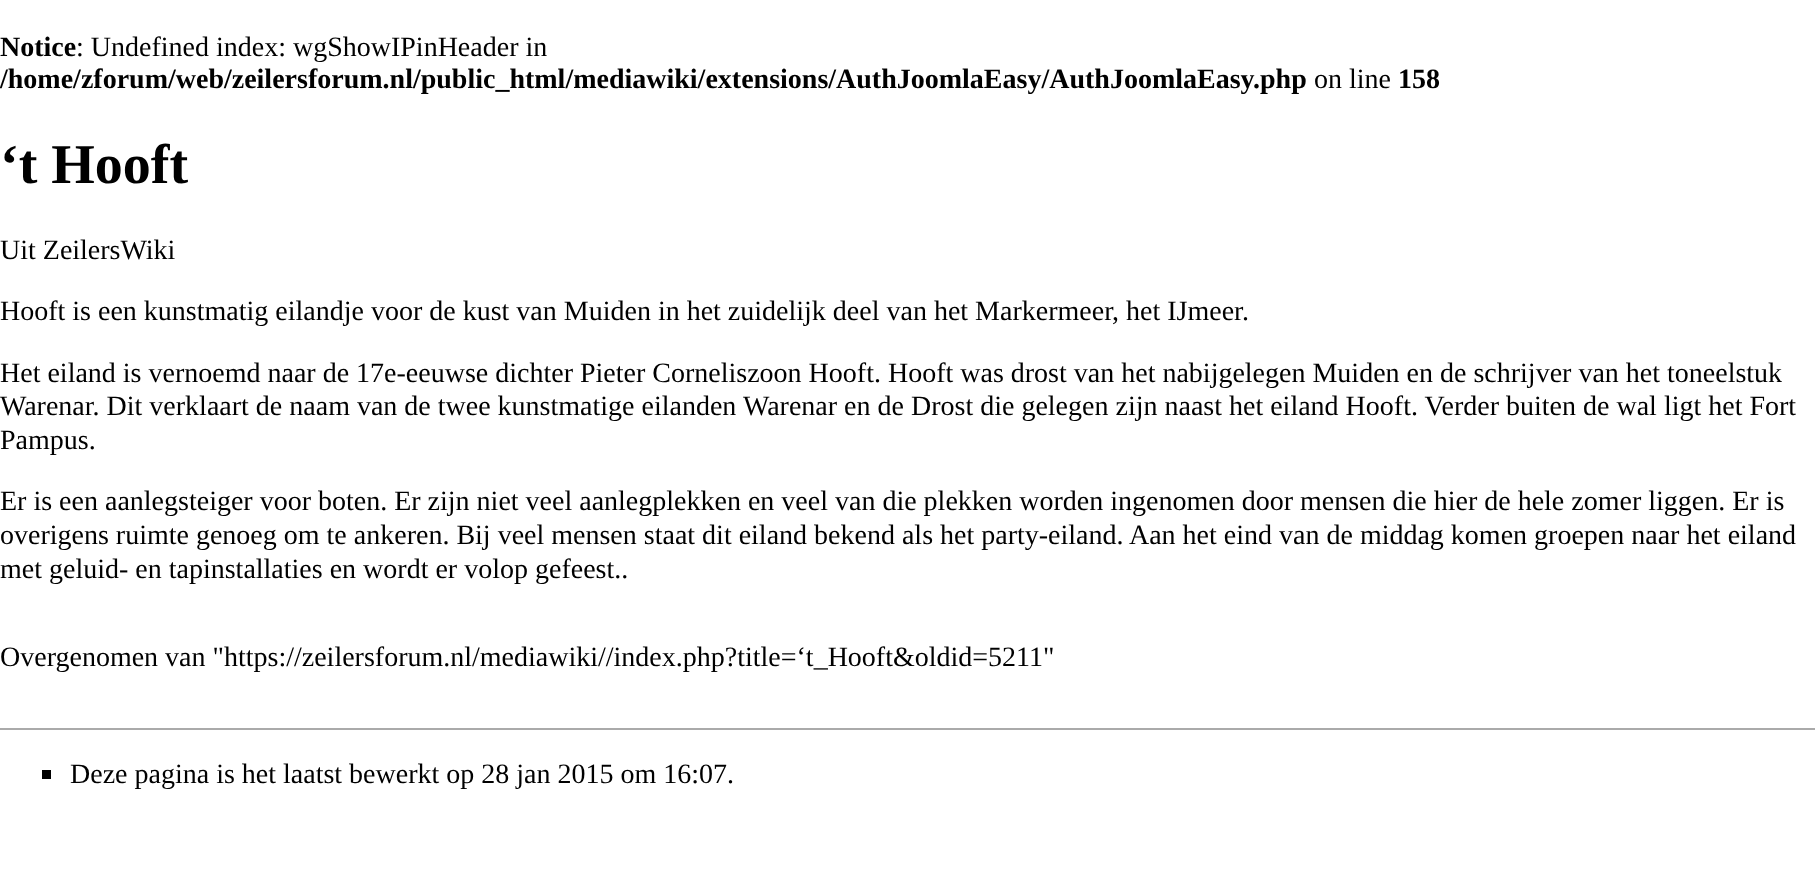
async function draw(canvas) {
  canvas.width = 1815
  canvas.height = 871
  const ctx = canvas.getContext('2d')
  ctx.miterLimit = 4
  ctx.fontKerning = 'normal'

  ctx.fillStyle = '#fff'
  ctx.fillRect(0, 0, 1815, 871)
  ctx.font = 'bold 28px Liberation Serif'
  ctx.fillStyle = '#000'
  ctx.fillText('Notice', 0, 56)
  ctx.font = '28px Liberation Serif'
  ctx.fillText(': Undefined index: wgShowIPinHeader in', 76, 56)
  ctx.font = 'bold 28px Liberation Serif'
  ctx.fillText('/home/zforum/web/zeilersforum.nl/public_html/mediawiki/extensions/AuthJoomlaEasy/AuthJoomlaEasy.php', 0, 88)
  ctx.font = '28px Liberation Serif'
  ctx.fillText('on line', 1314, 88)
  ctx.font = 'bold 28px Liberation Serif'
  ctx.fillText('158', 1398, 88)
  ctx.font = 'bold 56px Liberation Serif'
  ctx.fillText('‘t Hooft', 0, 183)
  ctx.font = '28px Liberation Serif'
  ctx.fillText('Uit ZeilersWiki', 0, 259)
  ctx.fillText('Hooft is een kunstmatig eilandje voor de kust van Muiden in het zuidelijk deel van het Markermeer', 0, 320)
  ctx.fillText(', het IJmeer', 1112, 320)
  ctx.fillText('.', 1242, 320)
  ctx.fillText('Het eiland is vernoemd naar de 17e-eeuwse dichter Pieter Corneliszoon Hooft. Hooft was drost van het nabijgelegen Muiden en de schrijver van het toneelstuk', 0, 382)
  ctx.fillText('Warenar. Dit verklaart de naam van de twee kunstmatige eilanden', 0, 415)
  ctx.fillText('Warenar en de Drost die gelegen zijn naast het eiland Hooft. Verder buiten de wal ligt het Fort', 743, 415)
  ctx.fillText('Pampus.', 0, 449)
  ctx.fillText('Er is een aanlegsteiger voor boten. Er zijn niet veel aanlegplekken en veel van die plekken worden ingenomen door mensen die hier de hele zomer liggen. Er is', 0, 510)
  ctx.fillText('overigens ruimte genoeg om te ankeren. Bij veel mensen staat dit eiland bekend als het party-eiland. Aan het eind van de middag komen groepen naar het eiland', 0, 544)
  ctx.fillText('met geluid- en tapinstallaties en wordt er volop gefeest..', 0, 578)
  ctx.fillText('Overgenomen van "https://zeilersforum.nl/mediawiki//index.php?title=‘t_Hooft&oldid=5211"', 0, 666)
  ctx.fillStyle = '#aaa'
  ctx.fillRect(0, 728, 1815, 2)
  ctx.fillStyle = '#000'
  ctx.fillRect(42, 770, 9, 9)
  ctx.fillText('Deze pagina is het laatst bewerkt op 28 jan 2015 om 16:07.', 70, 783)
}

draw(document.querySelector('canvas'))
